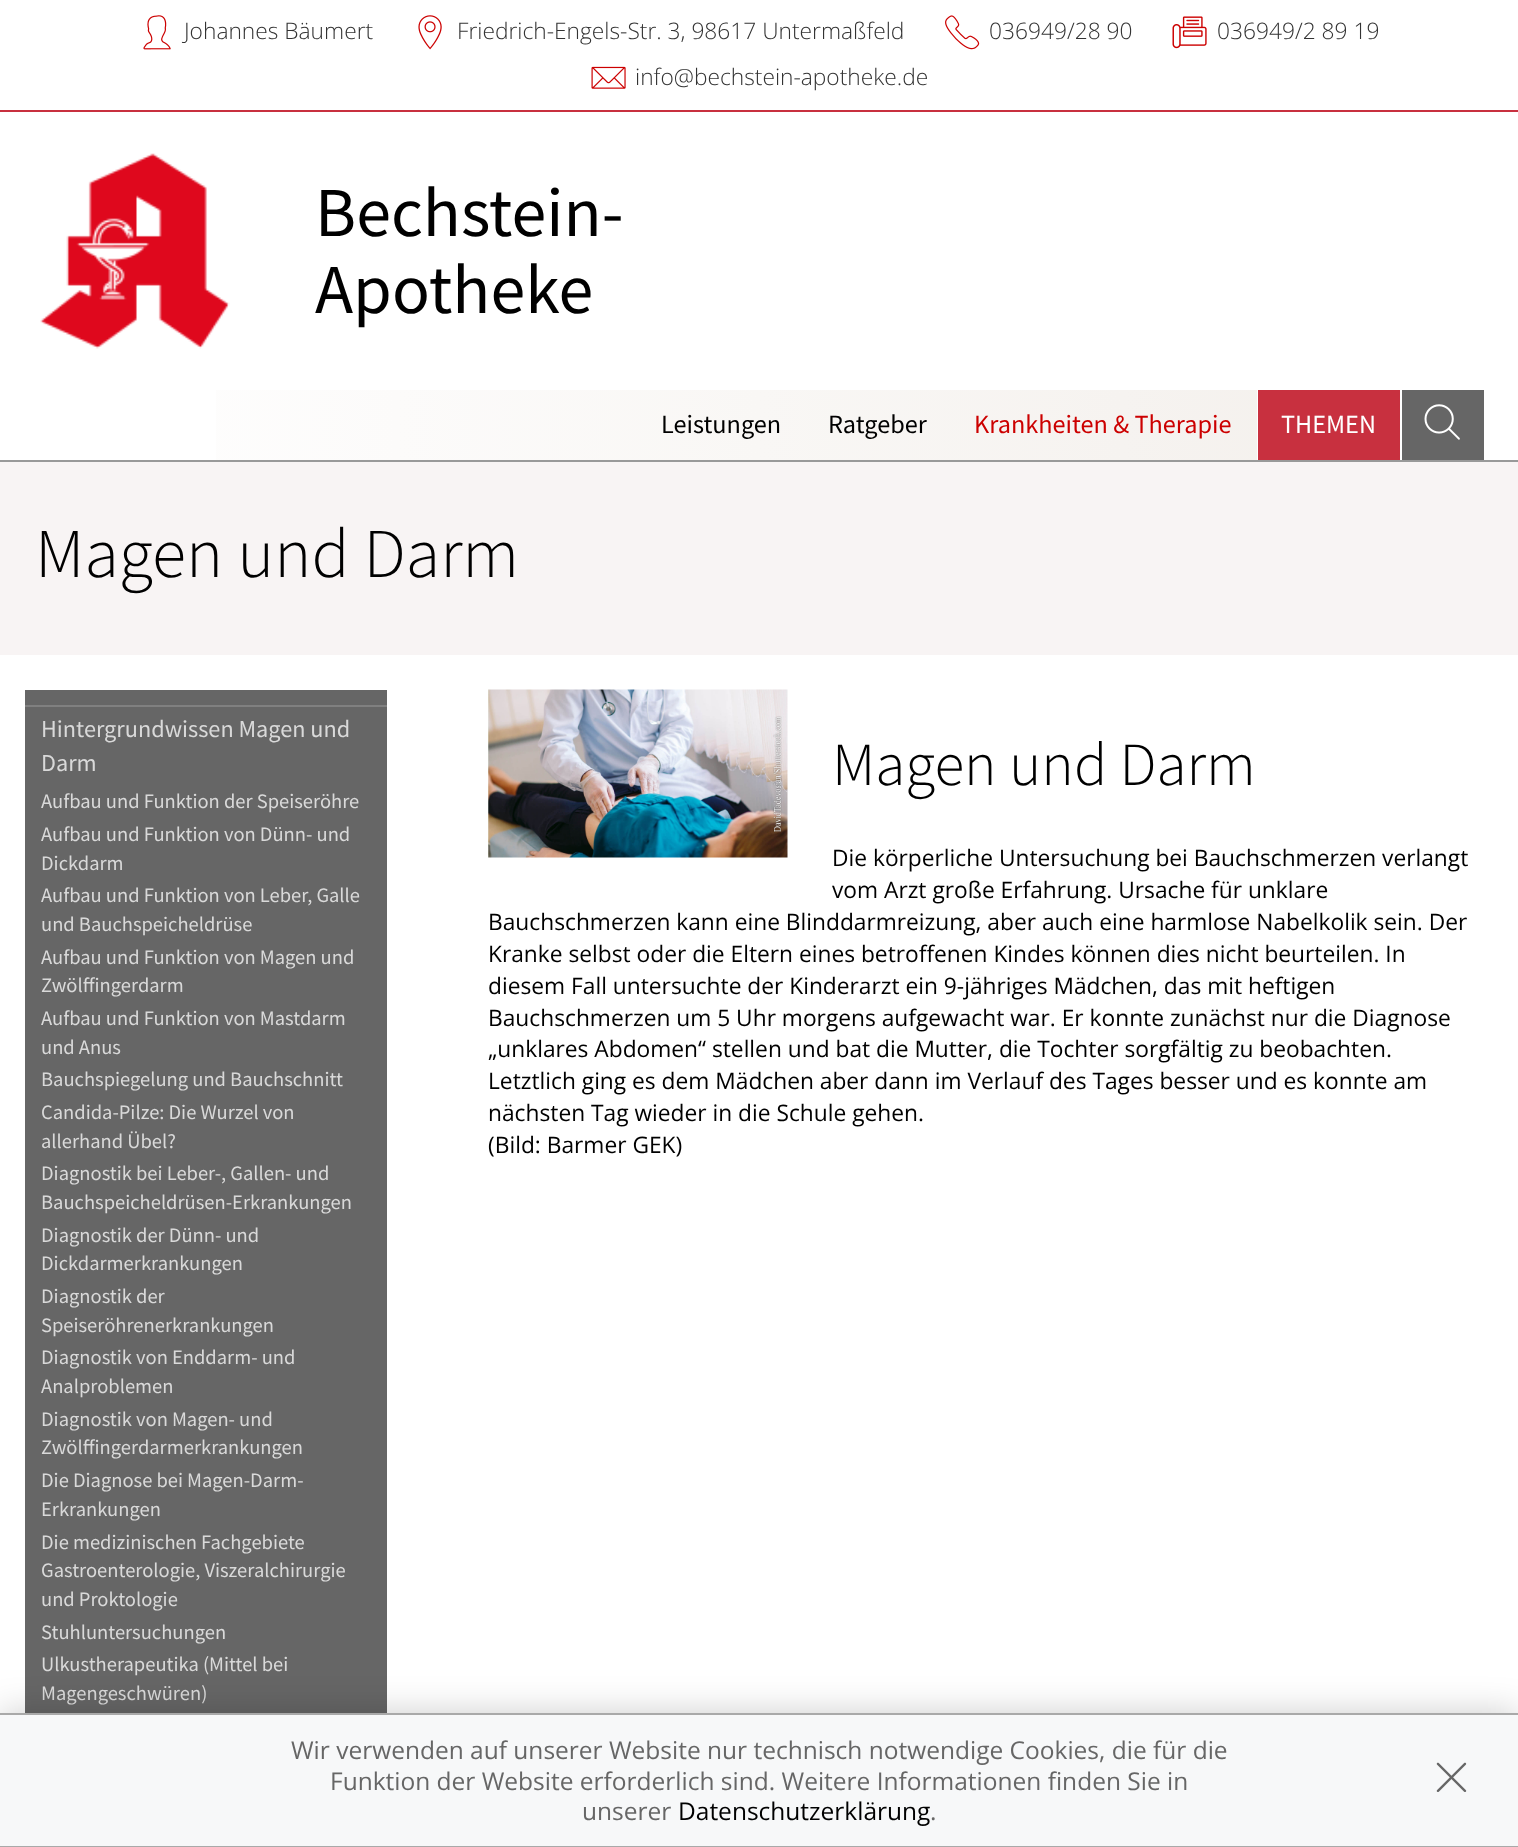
async function draw(canvas) {
  canvas.width = 1518
  canvas.height = 1847
  const ctx = canvas.getContext('2d')
  ctx.miterLimit = 4
  ctx.fontKerning = 'normal'
  async function loadImage(src) {
    const img = new Image()
    img.src = src
    await img.decode()
    return img
  }
  let gradient

  ctx.fillStyle = '#fff'
  ctx.fillRect(0, 0, 1518, 1847)
  ctx.fillStyle = '#c8303f'
  ctx.fillRect(0, 110, 1518, 2)
  ctx.drawImage(await loadImage('image0.png'), 143, 15, 28, 35)
  ctx.font = '300 22.75px Open Sans'
  ctx.fillStyle = '#333'
  ctx.fillText('Johannes Bäumert', 184, 39)
  ctx.drawImage(await loadImage('image1.png'), 418, 15, 24, 35)
  ctx.fillText('Friedrich-Engels-Str. 3, 98617 Untermaßfeld', 457, 39)
  ctx.drawImage(await loadImage('image2.png'), 945, 15, 35, 35)
  ctx.fillText('036949/28 90', 989, 39)
  ctx.drawImage(await loadImage('image3.png'), 1172, 16, 35, 33)
  ctx.fillText('036949/2 89 19', 1217, 39)
  ctx.drawImage(await loadImage('image4.png'), 591, 66, 35, 23)
  ctx.fillText('info@bechstein-apotheke.de', 635, 85)
  ctx.drawImage(await loadImage('image5.png'), 40, 153, 190, 196)
  ctx.font = '70px Source Sans Pro'
  ctx.fillStyle = '#000'
  ctx.fillText('Bechstein-', 315, 236)
  ctx.fillText('Apotheke', 315, 313)
  gradient = ctx.createLinearGradient(35, 425, 1484, 425)
  gradient.addColorStop(0, '#fff')
  gradient.addColorStop(1, '#f3efeb')
  ctx.fillStyle = gradient
  ctx.fillRect(216, 390, 1041, 70)
  ctx.font = '26.25px Source Sans Pro'
  ctx.fillStyle = '#000'
  ctx.fillText('Leistungen', 661, 433)
  ctx.fillText('Ratgeber', 828, 433)
  ctx.fillStyle = '#c00'
  ctx.fillText('Krankheiten & Therapie', 974, 433)
  ctx.fillStyle = '#c8303f'
  ctx.fillRect(1258, 390, 142, 70)
  ctx.fillStyle = '#fff'
  ctx.fillText('THEMEN', 1281, 433)
  ctx.fillStyle = '#666'
  ctx.fillRect(1402, 390, 82, 70)
  ctx.drawImage(await loadImage('image6.png'), 1424, 404, 36, 36)
  ctx.fillStyle = '#f8f4f4'
  ctx.fillRect(0, 462, 1518, 193)
  ctx.fillStyle = '#999'
  ctx.fillRect(0, 460, 1518, 2)
  ctx.font = '300 70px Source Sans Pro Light'
  ctx.fillStyle = '#000'
  ctx.fillText('Magen und Darm', 35, 577)
  ctx.fillStyle = '#666'
  ctx.fillRect(25, 690, 362, 1023)
  ctx.fillStyle = '#808080'
  ctx.fillRect(25, 705, 362, 2)
  ctx.font = '24.25px Source Sans Pro'
  ctx.fillStyle = '#d9d9d9'
  ctx.fillText('Hintergrundwissen Magen und', 41, 737)
  ctx.fillText('Darm', 41, 771)
  ctx.font = '20.5px Source Sans Pro'
  ctx.fillText('Aufbau und Funktion der Speiseröhre', 41, 808)
  ctx.fillText('Aufbau und Funktion von Dünn- und', 41, 841)
  ctx.fillText('Dickdarm', 41, 870)
  ctx.fillText('Aufbau und Funktion von Leber, Galle', 41, 902)
  ctx.fillText('und Bauchspeicheldrüse', 41, 931)
  ctx.fillText('Aufbau und Funktion von Magen und', 41, 964)
  ctx.fillText('Zwölffingerdarm', 41, 992)
  ctx.fillText('Aufbau und Funktion von Mastdarm', 41, 1025)
  ctx.fillText('und Anus', 41, 1054)
  ctx.fillText('Bauchspiegelung und Bauchschnitt', 41, 1086)
  ctx.fillText('Candida-Pilze: Die Wurzel von', 41, 1119)
  ctx.fillText('allerhand Übel?', 41, 1148)
  ctx.fillText('Diagnostik bei Leber-, Gallen- und', 41, 1180)
  ctx.fillText('Bauchspeicheldrüsen-Erkrankungen', 41, 1209)
  ctx.fillText('Diagnostik der Dünn- und', 41, 1242)
  ctx.fillText('Dickdarmerkrankungen', 41, 1270)
  ctx.fillText('Diagnostik der', 41, 1303)
  ctx.fillText('Speiseröhrenerkrankungen', 41, 1332)
  ctx.fillText('Diagnostik von Enddarm- und', 41, 1364)
  ctx.fillText('Analproblemen', 41, 1393)
  ctx.fillText('Diagnostik von Magen- und', 41, 1426)
  ctx.fillText('Zwölffingerdarmerkrankungen', 41, 1454)
  ctx.fillText('Die Diagnose bei Magen-Darm-', 41, 1487)
  ctx.fillText('Erkrankungen', 41, 1516)
  ctx.fillText('Die medizinischen Fachgebiete', 41, 1549)
  ctx.fillText('Gastroenterologie, Viszeralchirurgie', 41, 1577)
  ctx.fillText('und Proktologie', 41, 1606)
  ctx.fillText('Stuhluntersuchungen', 41, 1639)
  ctx.fillText('Ulkustherapeutika (Mittel bei', 41, 1671)
  ctx.fillText('Magengeschwüren)', 41, 1700)
  ctx.drawImage(await loadImage('image7.png'), 488, 689, 300, 169)
  ctx.font = '300 61.25px Source Sans Pro Light'
  ctx.fillStyle = '#000'
  ctx.fillText('Magen und Darm', 832, 785)
  ctx.font = '22.75px Open Sans'
  ctx.fillText('Die körperliche Untersuchung bei Bauchschmerzen verlangt', 832, 866)
  ctx.fillText('vom Arzt große Erfahrung. Ursache für unklare', 832, 898)
  ctx.fillText('Bauchschmerzen kann eine Blinddarmreizung, aber auch eine harmlose Nabelkolik sein. Der', 488, 930)
  ctx.fillText('Kranke selbst oder die Eltern eines betroffenen Kindes können dies nicht beurteilen. In', 488, 962)
  ctx.fillText('diesem Fall untersuchte der Kinderarzt ein 9-jähriges Mädchen, das mit heftigen', 488, 994)
  ctx.fillText('Bauchschmerzen um 5 Uhr morgens aufgewacht war. Er konnte zunächst nur die Diagnose', 488, 1026)
  ctx.fillText('„unklares Abdomen“ stellen und bat die Mutter, die Tochter sorgfältig zu beobachten.', 488, 1057)
  ctx.fillText('Letztlich ging es dem Mädchen aber dann im Verlauf des Tages besser und es konnte am', 488, 1089)
  ctx.fillText('nächsten Tag wieder in die Schule gehen.', 488, 1121)
  ctx.fillText('(Bild: Barmer GEK)', 488, 1153)
  ctx.fillStyle = '#00000033'
  ctx.filter = 'blur(17.5px)'
  ctx.beginPath()
  ctx.rect(0, 1713, 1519, 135)
  ctx.fill()
  ctx.filter = 'none'
  ctx.fillStyle = '#f7f8f9'
  ctx.fillRect(0, 1715, 1518, 131)
  ctx.fillStyle = '#a9a9a9'
  ctx.fillRect(0, 1713, 1518, 2)
  ctx.fillRect(0, 1846, 1518, 1)
  ctx.font = '24.5px Open Sans'
  ctx.fillStyle = '#666'
  ctx.fillText('Wir verwenden auf unserer Website nur technisch notwendige Cookies, die für die', 291, 1759)
  ctx.fillText('Funktion der Website erforderlich sind. Weitere Informationen finden Sie in', 330, 1790)
  ctx.fillText('unserer', 582, 1820)
  ctx.fillStyle = '#000'
  ctx.fillText('Datenschutzerklärung', 678, 1820)
  ctx.fillStyle = '#666'
  ctx.fillText('.', 930, 1820)
  ctx.drawImage(await loadImage('image8.png'), 1436, 1762, 31, 30)
}

draw(document.querySelector('canvas'))
